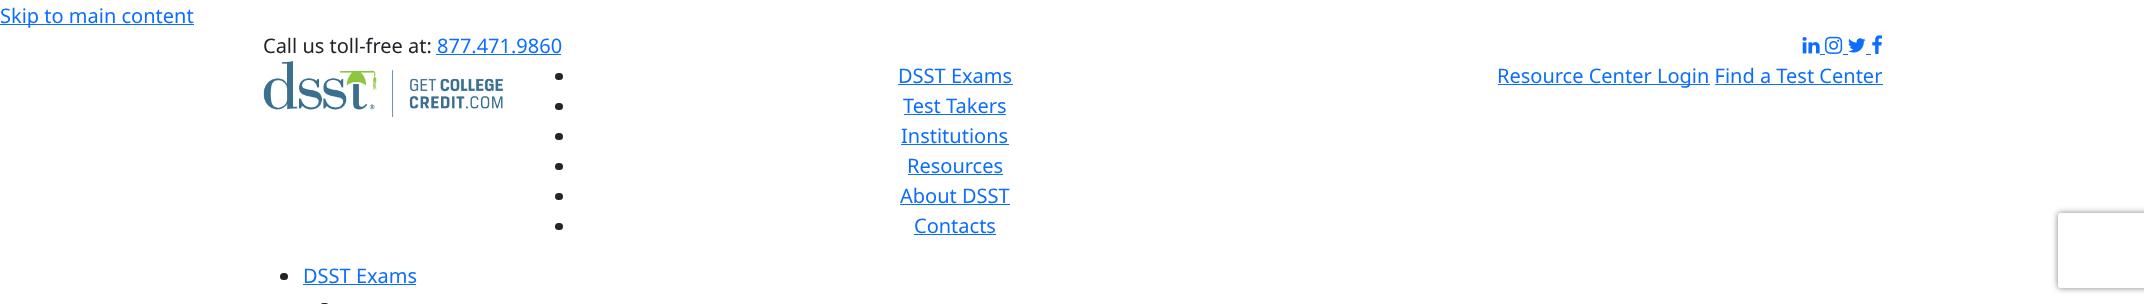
async function draw(canvas) {
  canvas.width = 2144
  canvas.height = 304
  const ctx = canvas.getContext('2d')
  ctx.miterLimit = 4
  ctx.fontKerning = 'normal'
  async function loadImage(src) {
    const img = new Image()
    img.src = src
    await img.decode()
    return img
  }

  ctx.fillStyle = '#fff'
  ctx.fillRect(0, 0, 2144, 304)
  ctx.fillStyle = '#0d6efd'
  ctx.fillRect(0, 24, 194, 1)
  ctx.font = '20px Noto Sans'
  ctx.fillText('Skip to main content', 0, 23)
  ctx.fillStyle = '#212529'
  ctx.fillText('Call us toll-free at:', 263, 53)
  ctx.fillStyle = '#0d6efd'
  ctx.fillText('877.471.9860', 437, 53)
  ctx.fillRect(436, 54, 125, 1)
  ctx.drawImage(await loadImage('image0.png'), 1802, 37, 18, 17)
  ctx.fillRect(1820, 54, 5, 1)
  ctx.drawImage(await loadImage('image1.png'), 1825, 36, 18, 18)
  ctx.fillRect(1843, 54, 5, 1)
  ctx.drawImage(await loadImage('image2.png'), 1848, 38, 18, 15)
  ctx.fillRect(1866, 54, 5, 1)
  ctx.drawImage(await loadImage('image3.png'), 1872, 35, 10, 19)
  ctx.drawImage(await loadImage('image4.png'), 263, 61, 240, 56)
  ctx.fillStyle = '#212529'
  ctx.beginPath()
  ctx.roundRect(555, 73, 8, 7, 3.5)
  ctx.fill()
  ctx.fillStyle = '#0d6efd'
  ctx.fillText('DSST Exams', 898, 83)
  ctx.fillRect(898, 84, 115, 1)
  ctx.fillStyle = '#212529'
  ctx.beginPath()
  ctx.roundRect(555, 103, 8, 7, 3.5)
  ctx.fill()
  ctx.fillStyle = '#0d6efd'
  ctx.fillText('Test Takers', 903, 113)
  ctx.fillRect(904, 114, 102, 1)
  ctx.fillStyle = '#212529'
  ctx.beginPath()
  ctx.roundRect(555, 133, 8, 7, 3.5)
  ctx.fill()
  ctx.fillStyle = '#0d6efd'
  ctx.fillText('Institutions', 901, 143)
  ctx.fillRect(901, 144, 108, 1)
  ctx.fillStyle = '#212529'
  ctx.beginPath()
  ctx.roundRect(555, 163, 8, 7, 3.5)
  ctx.fill()
  ctx.fillStyle = '#0d6efd'
  ctx.fillText('Resources', 907, 173)
  ctx.fillRect(908, 174, 95, 1)
  ctx.fillStyle = '#212529'
  ctx.beginPath()
  ctx.roundRect(555, 193, 8, 7, 3.5)
  ctx.fill()
  ctx.fillStyle = '#0d6efd'
  ctx.fillText('About DSST', 900, 203)
  ctx.fillRect(900, 204, 110, 1)
  ctx.fillStyle = '#212529'
  ctx.beginPath()
  ctx.roundRect(555, 223, 8, 7, 3.5)
  ctx.fill()
  ctx.fillStyle = '#0d6efd'
  ctx.fillText('Contacts', 914, 233)
  ctx.fillRect(914, 234, 82, 1)
  ctx.fillRect(1498, 84, 212, 1)
  ctx.fillText('Resource Center Login Find a Test Center', 1497, 83)
  ctx.fillRect(1715, 84, 168, 1)
  ctx.fillStyle = '#212529'
  ctx.beginPath()
  ctx.roundRect(280, 273, 8, 7, 3.5)
  ctx.fill()
  ctx.fillStyle = '#0d6efd'
  ctx.fillText('DSST Exams', 303, 283)
  ctx.fillRect(303, 284, 113, 1)
  ctx.beginPath()
  ctx.roundRect(320.5, 303.5, 8, 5, 3.5)
  ctx.strokeStyle = '#212529'
  ctx.stroke()
  ctx.save()
  ctx.beginPath()
  ctx.moveTo(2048, 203)
  ctx.lineTo(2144, 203)
  ctx.lineTo(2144, 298)
  ctx.lineTo(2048, 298)
  ctx.closePath()
  ctx.moveTo(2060.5, 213)
  ctx.lineTo(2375.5, 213)
  ctx.bezierCurveTo(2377, 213, 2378, 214, 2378, 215.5)
  ctx.lineTo(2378, 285.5)
  ctx.bezierCurveTo(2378, 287, 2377, 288, 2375.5, 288)
  ctx.lineTo(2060.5, 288)
  ctx.bezierCurveTo(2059, 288, 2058, 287, 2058, 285.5)
  ctx.lineTo(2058, 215.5)
  ctx.bezierCurveTo(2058, 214, 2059, 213, 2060.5, 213)
  ctx.closePath()
  ctx.clip('evenodd')
  ctx.fillStyle = '#808080'
  ctx.filter = 'blur(3px)'
  ctx.beginPath()
  ctx.roundRect(2058, 213, 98, 75, 2.5)
  ctx.fill()
  ctx.filter = 'none'
  ctx.restore()
}

draw(document.querySelector('canvas'))
